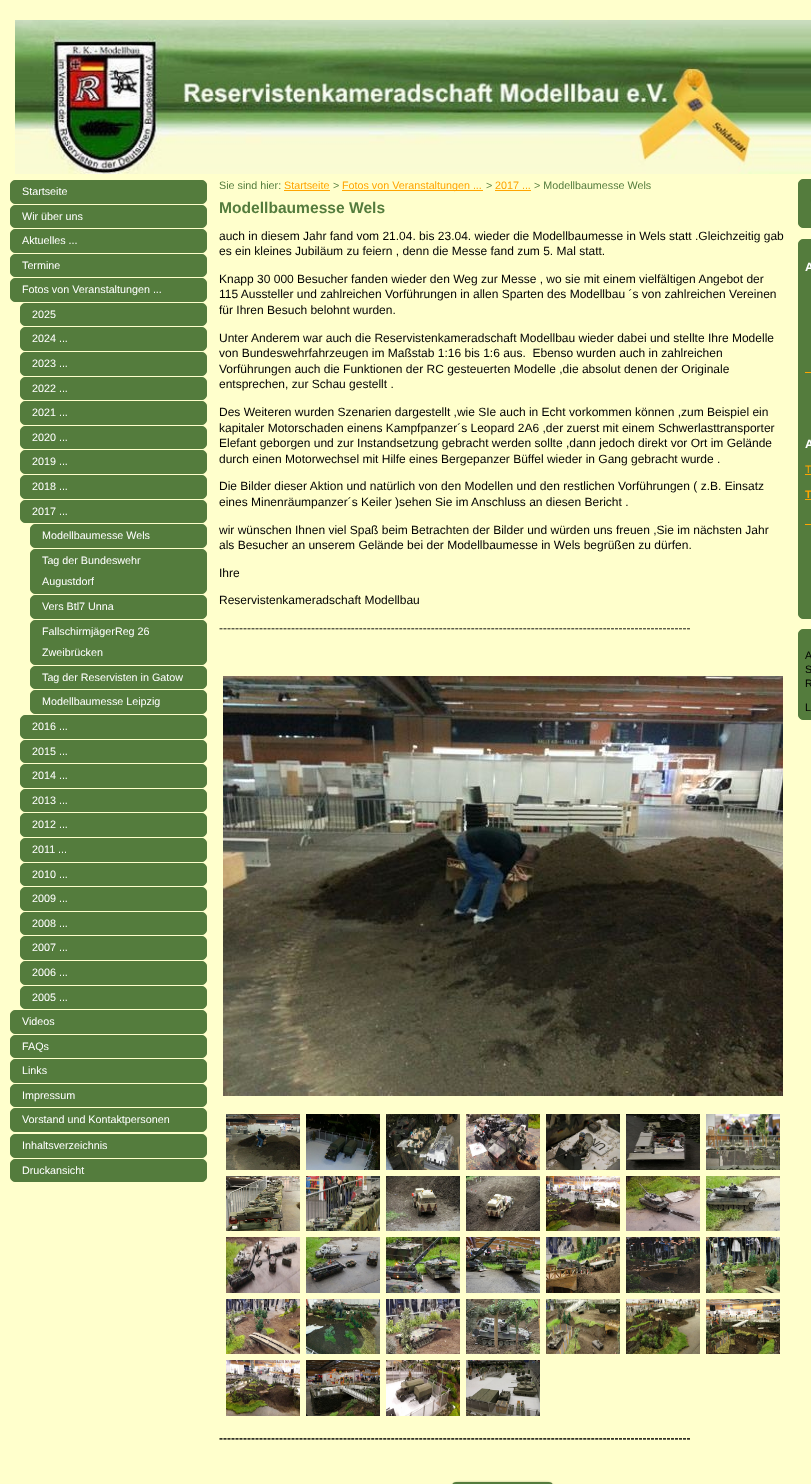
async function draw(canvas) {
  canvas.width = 811
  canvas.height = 1484
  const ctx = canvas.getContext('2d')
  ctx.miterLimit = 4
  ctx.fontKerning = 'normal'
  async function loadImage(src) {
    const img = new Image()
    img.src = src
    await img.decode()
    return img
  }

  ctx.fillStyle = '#ffc'
  ctx.fillRect(0, 0, 811, 1484)
  ctx.drawImage(await loadImage('image0.png'), 15, 20, 796, 154)
  ctx.fillStyle = '#547c3d'
  ctx.beginPath()
  ctx.roundRect(10.5, 180.5, 196, 23, 4.5)
  ctx.fill()
  ctx.strokeStyle = '#547c3d'
  ctx.stroke()
  ctx.font = '10.75px Liberation Sans'
  ctx.fillStyle = '#fff'
  ctx.fillText('Startseite', 22, 195)
  ctx.fillStyle = '#547c3d'
  ctx.beginPath()
  ctx.roundRect(10.5, 205.5, 196, 22, 4.5)
  ctx.fill()
  ctx.stroke()
  ctx.fillStyle = '#fff'
  ctx.fillText('Wir über uns', 22, 220)
  ctx.fillStyle = '#547c3d'
  ctx.beginPath()
  ctx.roundRect(10.5, 229.5, 196, 23, 4.5)
  ctx.fill()
  ctx.stroke()
  ctx.fillStyle = '#fff'
  ctx.fillText('Aktuelles ...', 22, 244)
  ctx.fillStyle = '#547c3d'
  ctx.beginPath()
  ctx.roundRect(10.5, 254.5, 196, 22, 4.5)
  ctx.fill()
  ctx.stroke()
  ctx.fillStyle = '#fff'
  ctx.fillText('Termine', 22, 269)
  ctx.fillStyle = '#547c3d'
  ctx.beginPath()
  ctx.roundRect(10.5, 278.5, 196, 23, 4.5)
  ctx.fill()
  ctx.stroke()
  ctx.fillStyle = '#fff'
  ctx.fillText('Fotos von Veranstaltungen ...', 22, 293)
  ctx.fillStyle = '#547c3d'
  ctx.beginPath()
  ctx.roundRect(20.5, 303.5, 186, 22, 4.5)
  ctx.fill()
  ctx.stroke()
  ctx.fillStyle = '#fff'
  ctx.fillText('2025', 32, 318)
  ctx.fillStyle = '#547c3d'
  ctx.beginPath()
  ctx.roundRect(20.5, 327.5, 186, 23, 4.5)
  ctx.fill()
  ctx.stroke()
  ctx.fillStyle = '#fff'
  ctx.fillText('2024 ...', 32, 342)
  ctx.fillStyle = '#547c3d'
  ctx.beginPath()
  ctx.roundRect(20.5, 352.5, 186, 23, 4.5)
  ctx.fill()
  ctx.stroke()
  ctx.fillStyle = '#fff'
  ctx.fillText('2023 ...', 32, 367)
  ctx.fillStyle = '#547c3d'
  ctx.beginPath()
  ctx.roundRect(20.5, 377.5, 186, 22, 4.5)
  ctx.fill()
  ctx.stroke()
  ctx.fillStyle = '#fff'
  ctx.fillText('2022 ...', 32, 392)
  ctx.fillStyle = '#547c3d'
  ctx.beginPath()
  ctx.roundRect(20.5, 401.5, 186, 23, 4.5)
  ctx.fill()
  ctx.stroke()
  ctx.fillStyle = '#fff'
  ctx.fillText('2021 ...', 32, 416)
  ctx.fillStyle = '#547c3d'
  ctx.beginPath()
  ctx.roundRect(20.5, 426.5, 186, 22, 4.5)
  ctx.fill()
  ctx.stroke()
  ctx.fillStyle = '#fff'
  ctx.fillText('2020 ...', 32, 441)
  ctx.fillStyle = '#547c3d'
  ctx.beginPath()
  ctx.roundRect(20.5, 450.5, 186, 23, 4.5)
  ctx.fill()
  ctx.stroke()
  ctx.fillStyle = '#fff'
  ctx.fillText('2019 ...', 32, 465)
  ctx.fillStyle = '#547c3d'
  ctx.beginPath()
  ctx.roundRect(20.5, 475.5, 186, 23, 4.5)
  ctx.fill()
  ctx.stroke()
  ctx.fillStyle = '#fff'
  ctx.fillText('2018 ...', 32, 490)
  ctx.fillStyle = '#547c3d'
  ctx.beginPath()
  ctx.roundRect(20.5, 500.5, 186, 22, 4.5)
  ctx.fill()
  ctx.stroke()
  ctx.fillStyle = '#fff'
  ctx.fillText('2017 ...', 32, 515)
  ctx.fillStyle = '#547c3d'
  ctx.beginPath()
  ctx.roundRect(30.5, 524.5, 176, 23, 4.5)
  ctx.fill()
  ctx.stroke()
  ctx.fillStyle = '#fff'
  ctx.fillText('Modellbaumesse Wels', 42, 539)
  ctx.fillStyle = '#547c3d'
  ctx.beginPath()
  ctx.roundRect(30.5, 549.5, 176, 44, 4.5)
  ctx.fill()
  ctx.stroke()
  ctx.fillStyle = '#fff'
  ctx.fillText('Tag der Bundeswehr', 42, 564)
  ctx.fillText('Augustdorf', 42, 585)
  ctx.fillStyle = '#547c3d'
  ctx.beginPath()
  ctx.roundRect(30.5, 595.5, 176, 23, 4.5)
  ctx.fill()
  ctx.stroke()
  ctx.fillStyle = '#fff'
  ctx.fillText('Vers Btl7 Unna', 42, 610)
  ctx.fillStyle = '#547c3d'
  ctx.beginPath()
  ctx.roundRect(30.5, 620.5, 176, 44, 4.5)
  ctx.fill()
  ctx.stroke()
  ctx.fillStyle = '#fff'
  ctx.fillText('FallschirmjägerReg 26', 42, 635)
  ctx.fillText('Zweibrücken', 42, 656)
  ctx.fillStyle = '#547c3d'
  ctx.beginPath()
  ctx.roundRect(30.5, 666.5, 176, 22, 4.5)
  ctx.fill()
  ctx.stroke()
  ctx.fillStyle = '#fff'
  ctx.fillText('Tag der Reservisten in Gatow', 42, 681)
  ctx.fillStyle = '#547c3d'
  ctx.beginPath()
  ctx.roundRect(30.5, 690.5, 176, 23, 4.5)
  ctx.fill()
  ctx.stroke()
  ctx.fillStyle = '#fff'
  ctx.fillText('Modellbaumesse Leipzig', 42, 705)
  ctx.fillStyle = '#547c3d'
  ctx.beginPath()
  ctx.roundRect(20.5, 715.5, 186, 23, 4.5)
  ctx.fill()
  ctx.stroke()
  ctx.fillStyle = '#fff'
  ctx.fillText('2016 ...', 32, 730)
  ctx.fillStyle = '#547c3d'
  ctx.beginPath()
  ctx.roundRect(20.5, 740.5, 186, 22, 4.5)
  ctx.fill()
  ctx.stroke()
  ctx.fillStyle = '#fff'
  ctx.fillText('2015 ...', 32, 755)
  ctx.fillStyle = '#547c3d'
  ctx.beginPath()
  ctx.roundRect(20.5, 764.5, 186, 23, 4.5)
  ctx.fill()
  ctx.stroke()
  ctx.fillStyle = '#fff'
  ctx.fillText('2014 ...', 32, 779)
  ctx.fillStyle = '#547c3d'
  ctx.beginPath()
  ctx.roundRect(20.5, 789.5, 186, 22, 4.5)
  ctx.fill()
  ctx.stroke()
  ctx.fillStyle = '#fff'
  ctx.fillText('2013 ...', 32, 804)
  ctx.fillStyle = '#547c3d'
  ctx.beginPath()
  ctx.roundRect(20.5, 813.5, 186, 23, 4.5)
  ctx.fill()
  ctx.stroke()
  ctx.fillStyle = '#fff'
  ctx.fillText('2012 ...', 32, 828)
  ctx.fillStyle = '#547c3d'
  ctx.beginPath()
  ctx.roundRect(20.5, 838.5, 186, 23, 4.5)
  ctx.fill()
  ctx.stroke()
  ctx.fillStyle = '#fff'
  ctx.fillText('2011 ...', 32, 853)
  ctx.fillStyle = '#547c3d'
  ctx.beginPath()
  ctx.roundRect(20.5, 863.5, 186, 22, 4.5)
  ctx.fill()
  ctx.stroke()
  ctx.fillStyle = '#fff'
  ctx.fillText('2010 ...', 32, 878)
  ctx.fillStyle = '#547c3d'
  ctx.beginPath()
  ctx.roundRect(20.5, 887.5, 186, 23, 4.5)
  ctx.fill()
  ctx.stroke()
  ctx.fillStyle = '#fff'
  ctx.fillText('2009 ...', 32, 902)
  ctx.fillStyle = '#547c3d'
  ctx.beginPath()
  ctx.roundRect(20.5, 912.5, 186, 22, 4.5)
  ctx.fill()
  ctx.stroke()
  ctx.fillStyle = '#fff'
  ctx.fillText('2008 ...', 32, 927)
  ctx.fillStyle = '#547c3d'
  ctx.beginPath()
  ctx.roundRect(20.5, 936.5, 186, 23, 4.5)
  ctx.fill()
  ctx.stroke()
  ctx.fillStyle = '#fff'
  ctx.fillText('2007 ...', 32, 951)
  ctx.fillStyle = '#547c3d'
  ctx.beginPath()
  ctx.roundRect(20.5, 961.5, 186, 23, 4.5)
  ctx.fill()
  ctx.stroke()
  ctx.fillStyle = '#fff'
  ctx.fillText('2006 ...', 32, 976)
  ctx.fillStyle = '#547c3d'
  ctx.beginPath()
  ctx.roundRect(20.5, 986.5, 186, 22, 4.5)
  ctx.fill()
  ctx.stroke()
  ctx.fillStyle = '#fff'
  ctx.fillText('2005 ...', 32, 1001)
  ctx.fillStyle = '#547c3d'
  ctx.beginPath()
  ctx.roundRect(10.5, 1010.5, 196, 23, 4.5)
  ctx.fill()
  ctx.stroke()
  ctx.fillStyle = '#fff'
  ctx.fillText('Videos', 22, 1025)
  ctx.fillStyle = '#547c3d'
  ctx.beginPath()
  ctx.roundRect(10.5, 1035.5, 196, 22, 4.5)
  ctx.fill()
  ctx.stroke()
  ctx.fillStyle = '#fff'
  ctx.fillText('FAQs', 22, 1050)
  ctx.fillStyle = '#547c3d'
  ctx.beginPath()
  ctx.roundRect(10.5, 1059.5, 196, 23, 4.5)
  ctx.fill()
  ctx.stroke()
  ctx.fillStyle = '#fff'
  ctx.fillText('Links', 22, 1074)
  ctx.fillStyle = '#547c3d'
  ctx.beginPath()
  ctx.roundRect(10.5, 1084.5, 196, 22, 4.5)
  ctx.fill()
  ctx.stroke()
  ctx.fillStyle = '#fff'
  ctx.fillText('Impressum', 22, 1099)
  ctx.fillStyle = '#547c3d'
  ctx.beginPath()
  ctx.roundRect(10.5, 1108.5, 196, 23, 4.5)
  ctx.fill()
  ctx.stroke()
  ctx.fillStyle = '#fff'
  ctx.fillText('Vorstand und Kontaktpersonen', 22, 1123)
  ctx.fillStyle = '#547c3d'
  ctx.beginPath()
  ctx.roundRect(10.5, 1134.5, 196, 23, 4.5)
  ctx.fill()
  ctx.stroke()
  ctx.fillStyle = '#fff'
  ctx.fillText('Inhaltsverzeichnis', 22, 1149)
  ctx.fillStyle = '#547c3d'
  ctx.beginPath()
  ctx.roundRect(10.5, 1159.5, 196, 22, 4.5)
  ctx.fill()
  ctx.stroke()
  ctx.fillStyle = '#fff'
  ctx.fillText('Druckansicht', 22, 1174)
  ctx.fillStyle = '#547c3d'
  ctx.fillText('Sie sind hier:', 219, 189)
  ctx.fillStyle = '#ffa500'
  ctx.fillText('Startseite', 284, 189)
  ctx.fillRect(284, 190, 46, 1)
  ctx.fillStyle = '#547c3d'
  ctx.fillText('>', 333, 189)
  ctx.fillStyle = '#ffa500'
  ctx.fillRect(342, 190, 141, 1)
  ctx.fillText('Fotos von Veranstaltungen ...', 342, 189)
  ctx.fillStyle = '#547c3d'
  ctx.fillText('>', 486, 189)
  ctx.fillStyle = '#ffa500'
  ctx.fillText('2017 ...', 495, 189)
  ctx.fillRect(495, 190, 36, 1)
  ctx.fillStyle = '#547c3d'
  ctx.fillText('> Modellbaumesse Wels', 534, 189)
  ctx.font = 'bold 15.6px Liberation Sans'
  ctx.fillText('Modellbaumesse Wels', 219, 213)
  ctx.font = '12px Liberation Sans'
  ctx.fillStyle = '#000'
  ctx.fillText('auch in diesem Jahr fand vom 21.04. bis 23.04. wieder die Modellbaumesse in Wels statt .Gleichzeitig gab', 219, 240)
  ctx.fillText('es ein kleines Jubiläum zu feiern , denn die Messe fand zum 5. Mal statt.', 219, 255)
  ctx.fillText('Knapp 30 000 Besucher fanden wieder den Weg zur Messe , wo sie mit einem vielfältigen Angebot der', 219, 283)
  ctx.fillText('115 Aussteller und zahlreichen Vorführungen in allen Sparten des Modellbau ´s von zahlreichen Vereinen', 219, 298)
  ctx.fillText('für Ihren Besuch belohnt wurden.', 219, 314)
  ctx.fillText('Unter Anderem war auch die Reservistenkameradschaft Modellbau wieder dabei und stellte Ihre Modelle', 219, 342)
  ctx.fillText('von Bundeswehrfahrzeugen im Maßstab 1:16 bis 1:6 aus.  Ebenso wurden auch in zahlreichen', 219, 357)
  ctx.fillText('Vorführungen auch die Funktionen der RC gesteuerten Modelle ,die absolut denen der Originale', 219, 373)
  ctx.fillText('entsprechen, zur Schau gestellt .', 219, 388)
  ctx.fillText('Des Weiteren wurden Szenarien dargestellt ,wie SIe auch in Echt vorkommen können ,zum Beispiel ein', 219, 416)
  ctx.fillText('kapitaler Motorschaden einens Kampfpanzer´s Leopard 2A6 ,der zuerst mit einem Schwerlasttransporter', 219, 432)
  ctx.fillText('Elefant geborgen und zur Instandsetzung gebracht werden sollte ,dann jedoch direkt vor Ort im Gelände', 219, 447)
  ctx.fillText('durch einen Motorwechsel mit Hilfe eines Bergepanzer Büffel wieder in Gang gebracht wurde .', 219, 463)
  ctx.fillText('Die Bilder dieser Aktion und natürlich von den Modellen und den restlichen Vorführungen ( z.B. Einsatz', 219, 490)
  ctx.fillText('eines Minenräumpanzer´s Keiler )sehen Sie im Anschluss an diesen Bericht .', 219, 506)
  ctx.fillText('wir wünschen Ihnen viel Spaß beim Betrachten der Bilder und würden uns freuen ,Sie im nächsten Jahr', 219, 534)
  ctx.fillText('als Besucher an unserem Gelände bei der Modellbaumesse in Wels begrüßen zu dürfen.', 219, 549)
  ctx.fillText('Ihre', 219, 577)
  ctx.fillText('Reservistenkameradschaft Modellbau', 219, 604)
  ctx.fillText('----------------------------------------------------------------------------------------------------------------------', 219, 632)
  ctx.drawImage(await loadImage('image1.png'), 223, 676, 560, 420)
  ctx.drawImage(await loadImage('image2.png'), 226, 1114, 74, 56)
  ctx.drawImage(await loadImage('image3.png'), 306, 1114, 74, 56)
  ctx.drawImage(await loadImage('image4.png'), 386, 1114, 74, 56)
  ctx.drawImage(await loadImage('image5.png'), 466, 1114, 74, 56)
  ctx.drawImage(await loadImage('image6.png'), 546, 1114, 74, 56)
  ctx.drawImage(await loadImage('image7.png'), 626, 1114, 74, 56)
  ctx.drawImage(await loadImage('image8.png'), 706, 1114, 74, 56)
  ctx.drawImage(await loadImage('image9.png'), 226, 1176, 74, 55)
  ctx.drawImage(await loadImage('image10.png'), 306, 1176, 74, 55)
  ctx.drawImage(await loadImage('image11.png'), 386, 1176, 74, 55)
  ctx.drawImage(await loadImage('image12.png'), 466, 1176, 74, 55)
  ctx.drawImage(await loadImage('image13.png'), 546, 1176, 74, 55)
  ctx.drawImage(await loadImage('image14.png'), 626, 1176, 74, 55)
  ctx.drawImage(await loadImage('image15.png'), 706, 1176, 74, 55)
  ctx.drawImage(await loadImage('image16.png'), 226, 1237, 74, 56)
  ctx.drawImage(await loadImage('image17.png'), 306, 1237, 74, 56)
  ctx.drawImage(await loadImage('image18.png'), 386, 1237, 74, 56)
  ctx.drawImage(await loadImage('image19.png'), 466, 1237, 74, 56)
  ctx.drawImage(await loadImage('image20.png'), 546, 1237, 74, 56)
  ctx.drawImage(await loadImage('image21.png'), 626, 1237, 74, 56)
  ctx.drawImage(await loadImage('image22.png'), 706, 1237, 74, 56)
  ctx.drawImage(await loadImage('image23.png'), 226, 1299, 74, 55)
  ctx.drawImage(await loadImage('image24.png'), 306, 1299, 74, 55)
  ctx.drawImage(await loadImage('image25.png'), 386, 1299, 74, 55)
  ctx.drawImage(await loadImage('image26.png'), 466, 1299, 74, 55)
  ctx.drawImage(await loadImage('image27.png'), 546, 1299, 74, 55)
  ctx.drawImage(await loadImage('image28.png'), 626, 1299, 74, 55)
  ctx.drawImage(await loadImage('image29.png'), 706, 1299, 74, 55)
  ctx.drawImage(await loadImage('image30.png'), 226, 1360, 74, 56)
  ctx.drawImage(await loadImage('image31.png'), 306, 1360, 74, 56)
  ctx.drawImage(await loadImage('image32.png'), 386, 1360, 74, 56)
  ctx.drawImage(await loadImage('image33.png'), 466, 1360, 74, 56)
  ctx.font = 'bold 12px Liberation Sans'
  ctx.fillText('----------------------------------------------------------------------------------------------------------------------', 219, 1442)
  ctx.fillStyle = '#547c3d'
  ctx.beginPath()
  ctx.roundRect(798.5, 179.5, 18, 48, 4.5)
  ctx.fill()
  ctx.stroke()
  ctx.beginPath()
  ctx.moveTo(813, 206)
  ctx.bezierCurveTo(811, 204, 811.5, 201, 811.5, 198.5)
  ctx.bezierCurveTo(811.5, 189.5, 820.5, 192.5, 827.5, 192.5)
  ctx.lineTo(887, 192.5)
  ctx.lineTo(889, 194)
  ctx.strokeStyle = '#004321'
  ctx.stroke()
  ctx.beginPath()
  ctx.roundRect(798.5, 239.5, 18, 379, 4.5)
  ctx.fill()
  ctx.strokeStyle = '#547c3d'
  ctx.stroke()
  ctx.fillStyle = '#fff'
  ctx.fillText('A', 805, 271)
  ctx.fillStyle = '#ffa500'
  ctx.fillRect(805, 372, 6, 1)
  ctx.fillStyle = '#fff'
  ctx.fillText('A', 805, 448)
  ctx.font = '10.75px Liberation Sans'
  ctx.fillStyle = '#ffa500'
  ctx.fillText('T', 805, 473)
  ctx.fillRect(805, 474, 6, 1)
  ctx.font = 'bold 10.75px Liberation Sans'
  ctx.fillText('T', 805, 498)
  ctx.fillRect(805, 499, 6, 1)
  ctx.fillRect(805, 524, 6, 1)
  ctx.fillStyle = '#547c3d'
  ctx.beginPath()
  ctx.roundRect(798.5, 629.5, 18, 90, 4.5)
  ctx.fill()
  ctx.stroke()
  ctx.font = '10.75px Liberation Sans'
  ctx.fillStyle = '#000'
  ctx.fillText('A', 805, 659)
  ctx.fillText('S', 805, 673)
  ctx.fillText('R', 805, 687)
  ctx.fillText('L', 805, 711)
  ctx.fillStyle = '#00000099'
  ctx.filter = 'blur(1.5px)'
  ctx.beginPath()
  ctx.roundRect(452, 1483, 101, 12, 6)
  ctx.fill()
  ctx.filter = 'none'
  ctx.fillStyle = '#547c3d'
  ctx.beginPath()
  ctx.roundRect(452, 1482, 101, 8, 6)
  ctx.fill()
}

draw(document.querySelector('canvas'))
